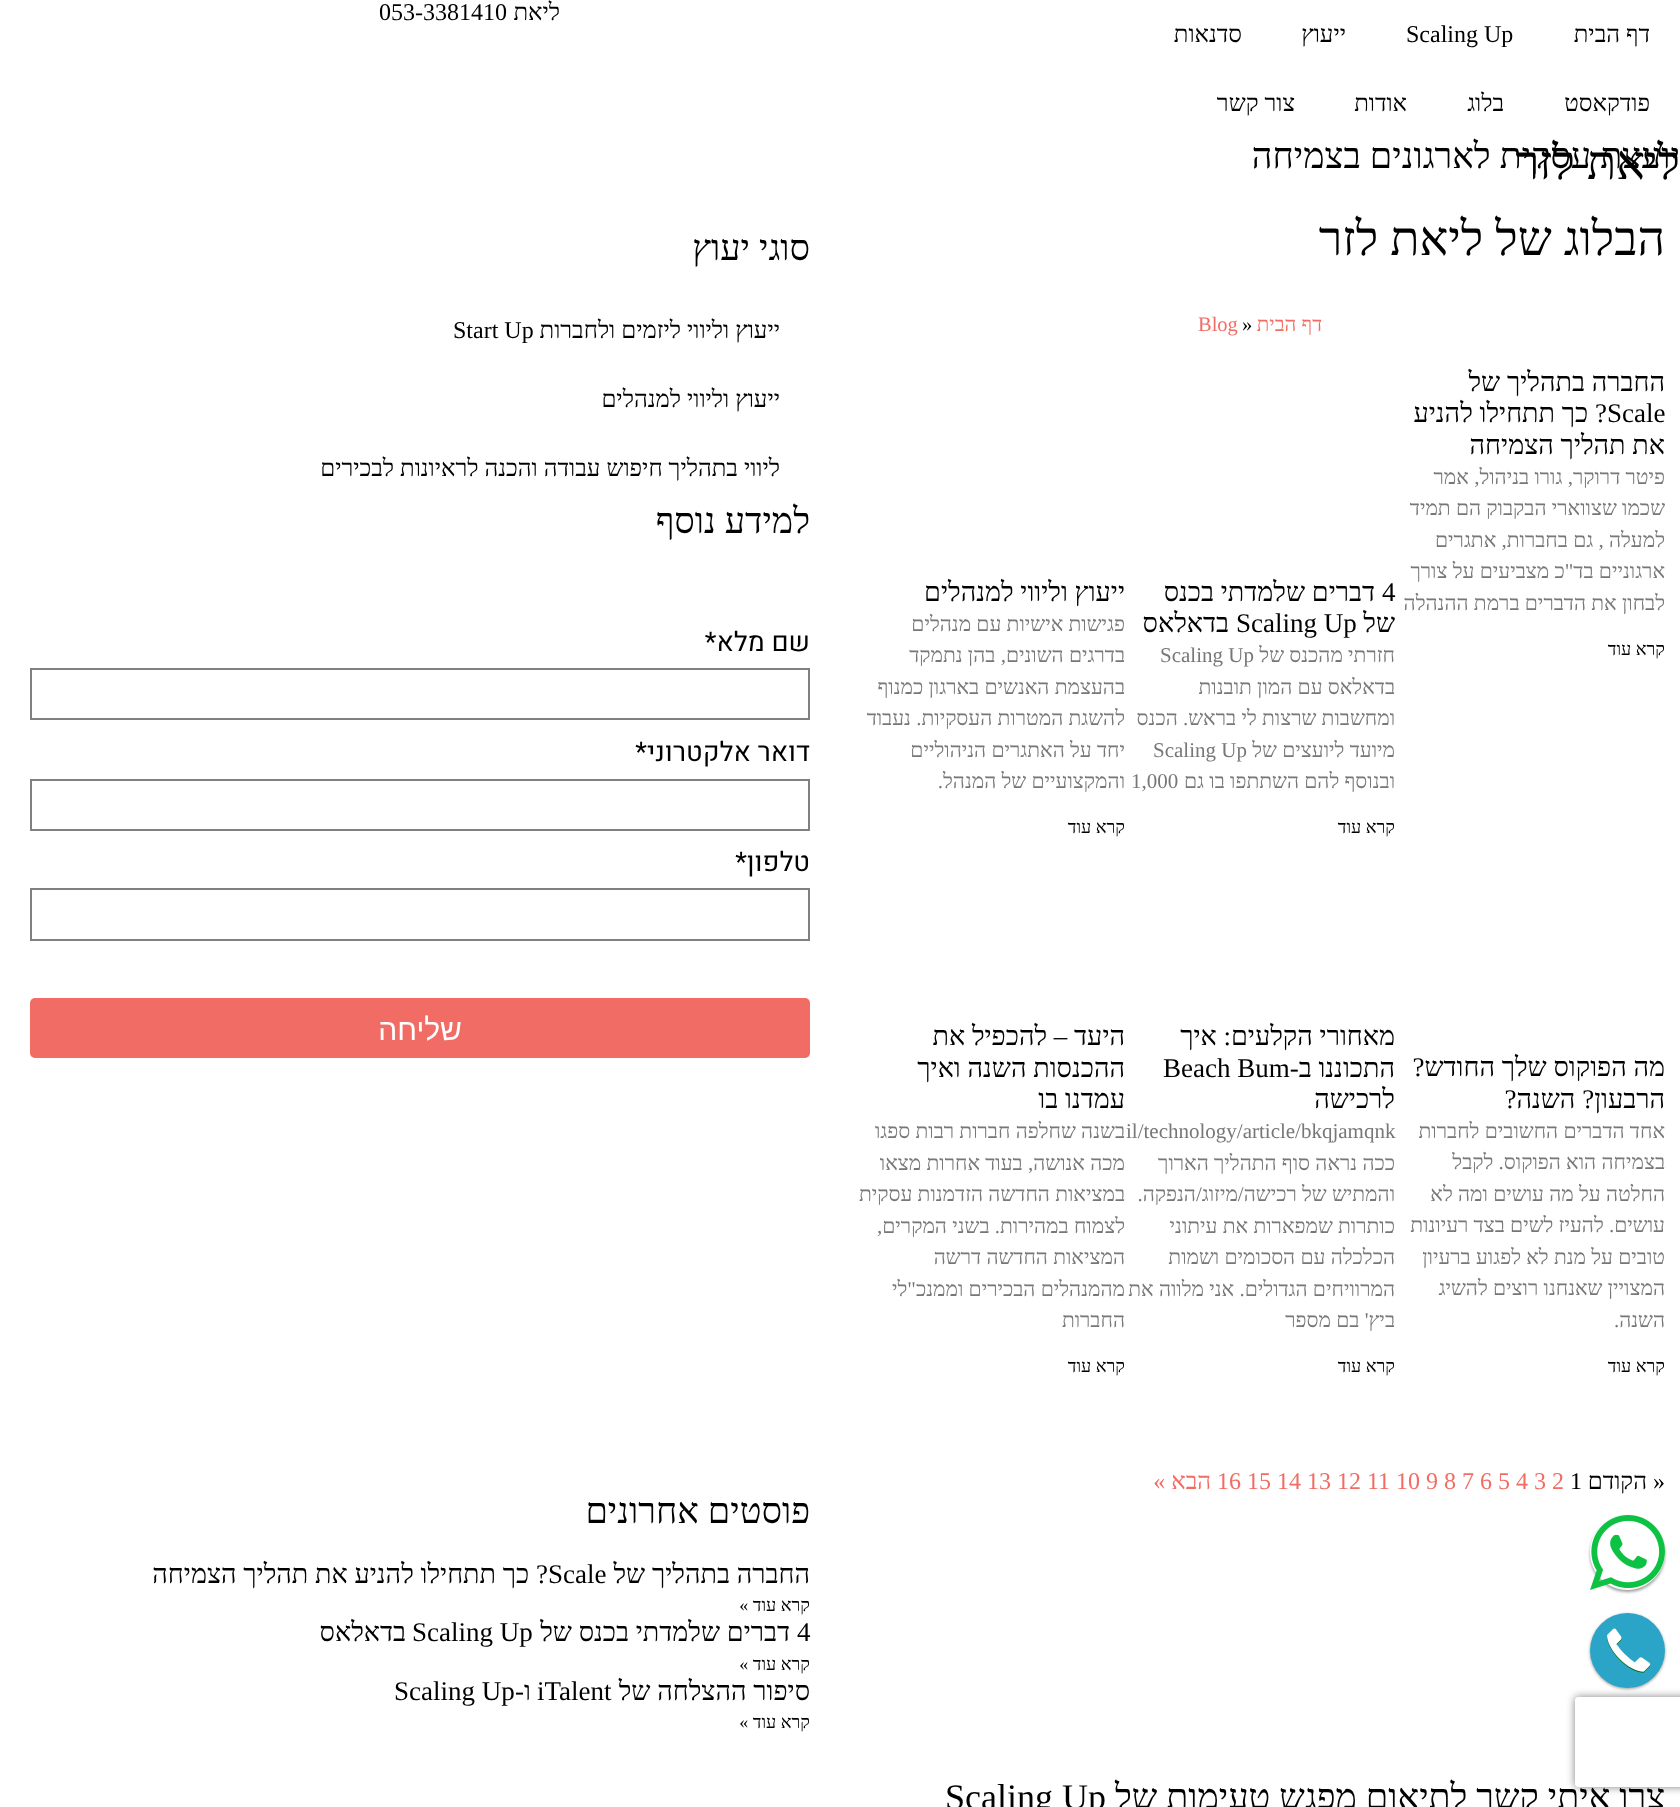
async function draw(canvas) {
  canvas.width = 1680
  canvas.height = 1807
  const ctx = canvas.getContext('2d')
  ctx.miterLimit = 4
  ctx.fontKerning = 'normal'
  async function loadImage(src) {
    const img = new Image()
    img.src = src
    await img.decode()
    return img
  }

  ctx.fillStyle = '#fff'
  ctx.fillRect(0, 0, 1680, 1807)
  ctx.direction = 'rtl'
  ctx.font = '24px Liberation Serif'
  ctx.fillStyle = '#000'
  ctx.fillText('ליאת', 560, 20)
  ctx.direction = 'ltr'
  ctx.fillText('053-3381410', 379, 20)
  ctx.direction = 'rtl'
  ctx.fillText('דף הבית', 1650, 42)
  ctx.direction = 'ltr'
  ctx.fillText('Scaling Up', 1406, 42)
  ctx.direction = 'rtl'
  ctx.fillText('ייעוץ', 1346, 42)
  ctx.fillText('סדנאות', 1242, 42)
  ctx.fillText('פודקאסט', 1650, 111)
  ctx.fillText('בלוג', 1504, 111)
  ctx.fillText('אודות', 1407, 111)
  ctx.fillText('צור קשר', 1295, 111)
  ctx.font = '48px Liberation Serif'
  ctx.fillText('ליאת לזר', 1680, 179)
  ctx.font = '36px Liberation Serif'
  ctx.fillText('יועצת עסקית לארגונים בצמיחה', 1680, 168)
  ctx.font = '48px Liberation Serif'
  ctx.fillText('הבלוג של ליאת לזר', 1665, 255)
  ctx.font = '20.5px Liberation Serif'
  ctx.fillStyle = '#f16d64'
  ctx.fillText('דף הבית', 1322, 331)
  ctx.direction = 'ltr'
  ctx.fillStyle = '#000'
  ctx.fillText('»', 1242, 331)
  ctx.fillStyle = '#f16d64'
  ctx.fillText('Blog', 1198, 331)
  ctx.direction = 'rtl'
  ctx.font = '27px Liberation Serif'
  ctx.fillStyle = '#000'
  ctx.fillText('החברה בתהליך של', 1665, 391)
  ctx.direction = 'ltr'
  ctx.fillText('Scale', 1607, 422)
  ctx.direction = 'rtl'
  ctx.fillText('? כך תתחילו להניע', 1607, 422)
  ctx.fillText('את תהליך הצמיחה', 1665, 454)
  ctx.font = '21px Liberation Serif'
  ctx.fillStyle = '#777'
  ctx.fillText('פיטר דרוקר, גורו בניהול, אמר', 1665, 484)
  ctx.fillText('שכמו שצווארי הבקבוק הם תמיד', 1665, 515)
  ctx.fillText('למעלה , גם בחברות, אתגרים', 1665, 547)
  ctx.fillText('ארגוניים בד"כ מצביעים על צורך', 1665, 578)
  ctx.fillText('לבחון את הדברים ברמת ההנהלה', 1665, 610)
  ctx.font = '18px Liberation Serif'
  ctx.fillStyle = '#000'
  ctx.fillText('קרא עוד', 1665, 655)
  ctx.direction = 'ltr'
  ctx.font = '27px Liberation Serif'
  ctx.fillText('4', 1382, 601)
  ctx.direction = 'rtl'
  ctx.fillText('דברים שלמדתי בכנס', 1375, 601)
  ctx.fillText('של', 1395, 632)
  ctx.direction = 'ltr'
  ctx.fillText('Scaling Up', 1236, 632)
  ctx.direction = 'rtl'
  ctx.fillText('בדאלאס', 1229, 632)
  ctx.font = '21px Liberation Serif'
  ctx.fillStyle = '#777'
  ctx.fillText('חזרתי מהכנס של', 1395, 662)
  ctx.direction = 'ltr'
  ctx.fillText('Scaling Up', 1160, 662)
  ctx.direction = 'rtl'
  ctx.fillText('בדאלאס עם המון תובנות', 1395, 694)
  ctx.fillText('ומחשבות שרצות לי בראש. הכנס', 1395, 725)
  ctx.fillText('מיועד ליועצים של', 1395, 757)
  ctx.direction = 'ltr'
  ctx.fillText('Scaling Up', 1153, 757)
  ctx.direction = 'rtl'
  ctx.fillText('ובנוסף להם השתתפו בו גם', 1395, 788)
  ctx.direction = 'ltr'
  ctx.fillText('1,000', 1131, 788)
  ctx.direction = 'rtl'
  ctx.font = '18px Liberation Serif'
  ctx.fillStyle = '#000'
  ctx.fillText('קרא עוד', 1395, 833)
  ctx.font = '27px Liberation Serif'
  ctx.fillText('ייעוץ וליווי למנהלים', 1125, 601)
  ctx.font = '21px Liberation Serif'
  ctx.fillStyle = '#777'
  ctx.fillText('פגישות אישיות עם מנהלים', 1125, 631)
  ctx.fillText('בדרגים השונים, בהן נתמקד', 1125, 662)
  ctx.fillText('בהעצמת האנשים בארגון כמנוף', 1125, 694)
  ctx.fillText('להשגת המטרות העסקיות. נעבוד', 1125, 725)
  ctx.fillText('יחד על האתגרים הניהוליים', 1125, 757)
  ctx.fillText('והמקצועיים של המנהל.', 1125, 788)
  ctx.font = '18px Liberation Serif'
  ctx.fillStyle = '#000'
  ctx.fillText('קרא עוד', 1125, 833)
  ctx.font = '27px Liberation Serif'
  ctx.fillText('מה הפוקוס שלך החודש?', 1665, 1076)
  ctx.fillText('הרבעון? השנה?', 1665, 1108)
  ctx.font = '21px Liberation Serif'
  ctx.fillStyle = '#777'
  ctx.fillText('אחד הדברים החשובים לחברות', 1665, 1138)
  ctx.fillText('בצמיחה הוא הפוקוס. לקבל', 1665, 1169)
  ctx.fillText('החלטה על מה עושים ומה לא', 1665, 1201)
  ctx.fillText('עושים. להעיז לשים בצד רעיונות', 1665, 1232)
  ctx.fillText('טובים על מנת לא לפגוע ברעיון', 1665, 1264)
  ctx.fillText('המצויין שאנחנו רוצים להשיג', 1665, 1295)
  ctx.fillText('השנה.', 1665, 1327)
  ctx.font = '18px Liberation Serif'
  ctx.fillStyle = '#000'
  ctx.fillText('קרא עוד', 1665, 1372)
  ctx.font = '27px Liberation Serif'
  ctx.fillText('מאחורי הקלעים: איך', 1395, 1045)
  ctx.fillText('התכוננו ב-', 1395, 1077)
  ctx.direction = 'ltr'
  ctx.fillText('Beach Bum', 1163, 1077)
  ctx.direction = 'rtl'
  ctx.fillText('לרכישה', 1395, 1108)
  ctx.direction = 'ltr'
  ctx.font = '21px Liberation Serif'
  ctx.fillStyle = '#777'
  ctx.fillText('il/technology/article/bkqjamqnk', 1126, 1138)
  ctx.direction = 'rtl'
  ctx.fillText('ככה נראה סוף התהליך הארוך', 1395, 1170)
  ctx.fillText('והמתיש של רכישה/מיזוג/הנפקה.', 1395, 1201)
  ctx.fillText('כותרות שמפארות את עיתוני', 1395, 1233)
  ctx.fillText('הכלכלה עם הסכומים ושמות', 1395, 1264)
  ctx.fillText('המרוויחים הגדולים. אני מלווה את', 1395, 1296)
  ctx.fillText('ביץ\' בם מספר', 1395, 1327)
  ctx.font = '18px Liberation Serif'
  ctx.fillStyle = '#000'
  ctx.fillText('קרא עוד', 1395, 1372)
  ctx.font = '27px Liberation Serif'
  ctx.fillText('היעד – להכפיל את', 1125, 1045)
  ctx.fillText('ההכנסות השנה ואיך', 1125, 1077)
  ctx.fillText('עמדנו בו', 1125, 1108)
  ctx.font = '21px Liberation Serif'
  ctx.fillStyle = '#777'
  ctx.fillText('בשנה שחלפה חברות רבות ספגו', 1125, 1138)
  ctx.fillText('מכה אנושה, בעוד אחרות מצאו', 1125, 1170)
  ctx.fillText('במציאות החדשה הזדמנות עסקית', 1125, 1201)
  ctx.fillText('לצמוח במהירות. בשני המקרים,', 1125, 1233)
  ctx.fillText('המציאות החדשה דרשה', 1125, 1264)
  ctx.fillText('מהמנהלים הבכירים וממנכ"לי', 1125, 1296)
  ctx.fillText('החברות', 1125, 1327)
  ctx.font = '18px Liberation Serif'
  ctx.fillStyle = '#000'
  ctx.fillText('קרא עוד', 1125, 1372)
  ctx.font = '24px Liberation Serif'
  ctx.fillText('« הקודם', 1665, 1489)
  ctx.direction = 'ltr'
  ctx.fillText('1', 1570, 1489)
  ctx.fillStyle = '#f16d64'
  ctx.fillText('2', 1552, 1489)
  ctx.fillText('3', 1534, 1489)
  ctx.fillText('4', 1516, 1489)
  ctx.fillText('5', 1498, 1489)
  ctx.fillText('6', 1480, 1489)
  ctx.fillText('7', 1462, 1489)
  ctx.fillText('8', 1444, 1489)
  ctx.fillText('9', 1426, 1489)
  ctx.fillText('10', 1396, 1489)
  ctx.fillText('11', 1367, 1489)
  ctx.fillText('12', 1337, 1489)
  ctx.fillText('13', 1307, 1489)
  ctx.fillText('14', 1277, 1489)
  ctx.fillText('15', 1247, 1489)
  ctx.fillText('16', 1217, 1489)
  ctx.direction = 'rtl'
  ctx.fillText('הבא »', 1211, 1489)
  ctx.font = '36px Liberation Serif'
  ctx.fillStyle = '#000'
  ctx.fillText('סוגי יעוץ', 810, 260)
  ctx.font = '24px Liberation Serif'
  ctx.fillText('ייעוץ וליווי ליזמים ולחברות', 780, 338)
  ctx.direction = 'ltr'
  ctx.fillText('Start Up', 453, 338)
  ctx.direction = 'rtl'
  ctx.fillText('ייעוץ וליווי למנהלים', 780, 407)
  ctx.fillText('ליווי בתהליך חיפוש עבודה והכנה לראיונות לבכירים', 780, 476)
  ctx.font = '36px Liberation Serif'
  ctx.fillText('למידע נוסף', 810, 533)
  ctx.font = '27px Heebo'
  ctx.fillText('שם מלא*', 810, 651)
  ctx.strokeStyle = '#808080'
  ctx.lineWidth = 2
  ctx.strokeRect(31, 669, 778, 50)
  ctx.fillText('דואר אלקטרוני*', 810, 761)
  ctx.strokeRect(31, 780, 778, 50)
  ctx.fillText('טלפון*', 810, 871)
  ctx.strokeRect(31, 889, 778, 51)
  ctx.fillStyle = '#f16c65'
  ctx.beginPath()
  ctx.roundRect(30, 998, 780, 60, 5)
  ctx.fill()
  ctx.font = '30px Liberation Sans'
  ctx.fillStyle = '#fff'
  ctx.fillText('שליחה', 462, 1040)
  ctx.font = '36px Liberation Serif'
  ctx.fillStyle = '#000'
  ctx.fillText('פוסטים אחרונים', 810, 1523)
  ctx.font = '27px Liberation Serif'
  ctx.fillText('החברה בתהליך של', 810, 1583)
  ctx.direction = 'ltr'
  ctx.fillText('Scale', 548, 1583)
  ctx.direction = 'rtl'
  ctx.fillText('? כך תתחילו להניע את תהליך הצמיחה', 548, 1583)
  ctx.font = '18px Liberation Serif'
  ctx.fillText('קרא עוד »', 810, 1611)
  ctx.direction = 'ltr'
  ctx.font = '27px Liberation Serif'
  ctx.fillText('4', 797, 1641)
  ctx.direction = 'rtl'
  ctx.fillText('דברים שלמדתי בכנס של', 790, 1641)
  ctx.direction = 'ltr'
  ctx.fillText('Scaling Up', 412, 1641)
  ctx.direction = 'rtl'
  ctx.fillText('בדאלאס', 406, 1641)
  ctx.font = '18px Liberation Serif'
  ctx.fillText('קרא עוד »', 810, 1670)
  ctx.font = '27px Liberation Serif'
  ctx.fillText('סיפור ההצלחה של', 810, 1700)
  ctx.direction = 'ltr'
  ctx.fillText('iTalent', 537, 1700)
  ctx.direction = 'rtl'
  ctx.fillText('ו-', 531, 1700)
  ctx.direction = 'ltr'
  ctx.fillText('Scaling Up', 394, 1700)
  ctx.direction = 'rtl'
  ctx.font = '18px Liberation Serif'
  ctx.fillText('קרא עוד »', 810, 1728)
  ctx.save()
  ctx.beginPath()
  ctx.moveTo(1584, 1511)
  ctx.lineTo(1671, 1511)
  ctx.lineTo(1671, 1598)
  ctx.lineTo(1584, 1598)
  ctx.closePath()
  ctx.moveTo(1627.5, 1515)
  ctx.bezierCurveTo(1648, 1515, 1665, 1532, 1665, 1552.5)
  ctx.bezierCurveTo(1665, 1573, 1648, 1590, 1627.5, 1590)
  ctx.bezierCurveTo(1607, 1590, 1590, 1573, 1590, 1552.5)
  ctx.bezierCurveTo(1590, 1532, 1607, 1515, 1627.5, 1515)
  ctx.closePath()
  ctx.clip('evenodd')
  ctx.fillStyle = '#00000066'
  ctx.filter = 'blur(1.5px)'
  ctx.beginPath()
  ctx.roundRect(1590, 1517, 75, 75, 37.5)
  ctx.fill()
  ctx.filter = 'none'
  ctx.restore()
  ctx.drawImage(await loadImage('image0.png'), 1590, 1515, 75, 75)
  ctx.fillStyle = '#00000066'
  ctx.filter = 'blur(1.5px)'
  ctx.beginPath()
  ctx.roundRect(1590, 1614, 75, 75, 37.5)
  ctx.fill()
  ctx.filter = 'none'
  ctx.save()
  ctx.beginPath()
  ctx.moveTo(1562, 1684)
  ctx.lineTo(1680, 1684)
  ctx.lineTo(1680, 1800)
  ctx.lineTo(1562, 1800)
  ctx.closePath()
  ctx.moveTo(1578, 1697)
  ctx.lineTo(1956, 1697)
  ctx.bezierCurveTo(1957.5, 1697, 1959, 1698.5, 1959, 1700)
  ctx.lineTo(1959, 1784)
  ctx.bezierCurveTo(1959, 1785.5, 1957.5, 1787, 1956, 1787)
  ctx.lineTo(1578, 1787)
  ctx.bezierCurveTo(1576.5, 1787, 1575, 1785.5, 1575, 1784)
  ctx.lineTo(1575, 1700)
  ctx.bezierCurveTo(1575, 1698.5, 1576.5, 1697, 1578, 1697)
  ctx.closePath()
  ctx.clip('evenodd')
  ctx.fillStyle = '#808080'
  ctx.filter = 'blur(4px)'
  ctx.beginPath()
  ctx.roundRect(1575, 1697, 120, 90, 3)
  ctx.fill()
  ctx.filter = 'none'
  ctx.restore()
  ctx.fillStyle = '#2aa5c7'
  ctx.beginPath()
  ctx.arc(1627.5, 1650.5, 37.5, 0, 2 * Math.PI)
  ctx.fill()
  ctx.drawImage(await loadImage('image1.png'), 1607, 1628, 44, 45)
  ctx.font = '36px Liberation Serif'
  ctx.fillStyle = '#000'
  ctx.fillText('צרו איתי קשר לתיאום מפגש טעימות של', 1665, 1809)
  ctx.direction = 'ltr'
  ctx.fillText('Scaling Up', 945, 1809)
}

draw(document.querySelector('canvas'))
